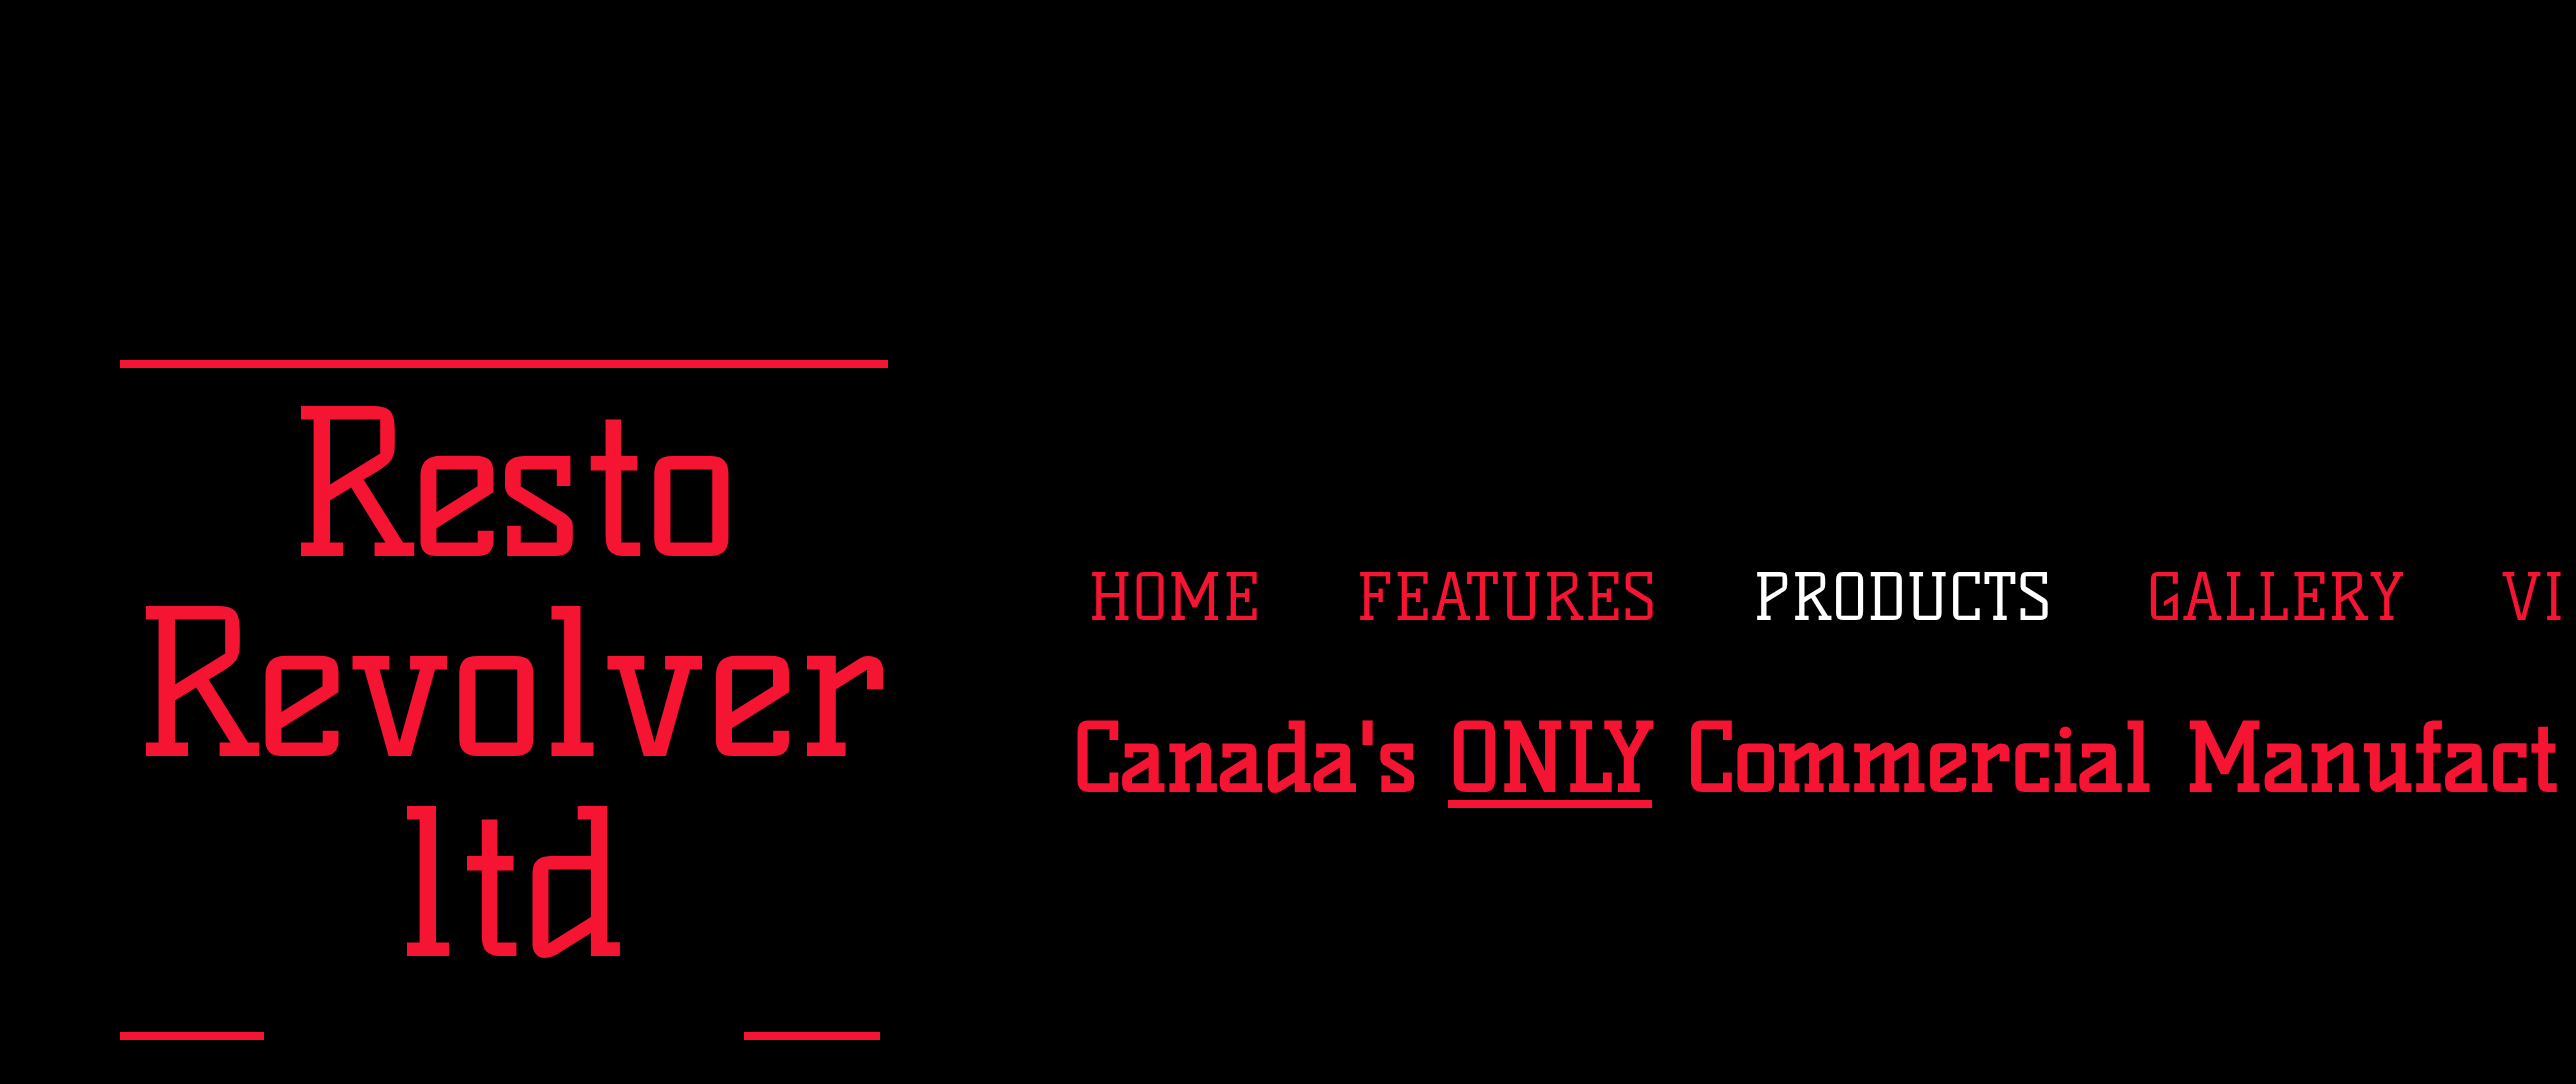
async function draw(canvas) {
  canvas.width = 2576
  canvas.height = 1084
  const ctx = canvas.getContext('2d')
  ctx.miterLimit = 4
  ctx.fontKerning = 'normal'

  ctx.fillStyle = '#000'
  ctx.fillRect(0, 0, 2576, 1084)
  ctx.fillStyle = '#f51432'
  ctx.fillRect(120, 360, 768, 8)
  ctx.font = '200px Kelly Slab'
  ctx.fillText('Resto', 288, 556)
  ctx.fillText('Revolver', 133, 756)
  ctx.fillText('ltd', 397, 956)
  ctx.fillRect(120, 1032, 144, 8)
  ctx.fillRect(744, 1032, 136, 8)
  ctx.font = '64px Kelly Slab'
  ctx.fillText('HOME', 1088, 620)
  ctx.fillText('FEATURES', 1356, 620)
  ctx.fillStyle = '#fff'
  ctx.fillText('PRODUCTS', 1753, 620)
  ctx.fillStyle = '#f51432'
  ctx.fillText('GALLERY', 2147, 620)
  ctx.fillText('VI', 2501, 620)
  ctx.font = 'bold 92px Kelly Slab'
  ctx.fillText('Canada\'s ONLY Commercial Manufact', 1072, 792)
  ctx.fillRect(1448, 800, 204, 8)
}

draw(document.querySelector('canvas'))
